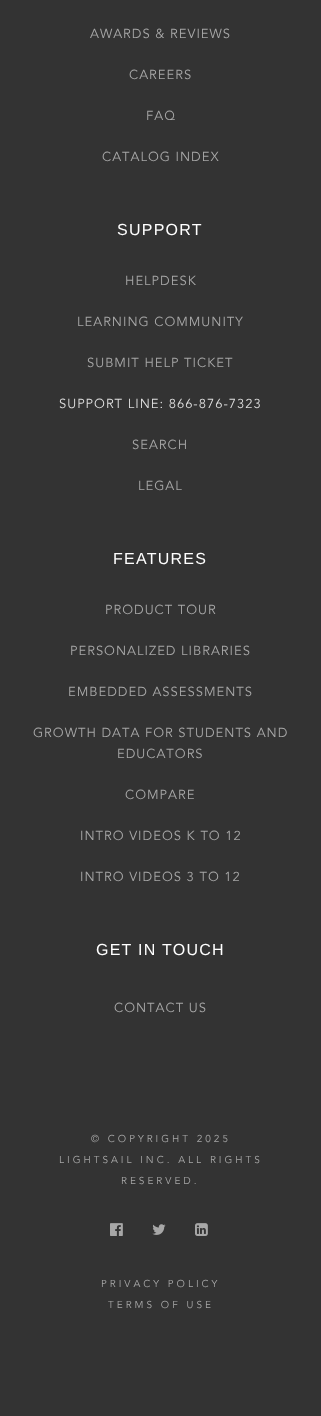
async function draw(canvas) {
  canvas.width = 321
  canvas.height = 1416
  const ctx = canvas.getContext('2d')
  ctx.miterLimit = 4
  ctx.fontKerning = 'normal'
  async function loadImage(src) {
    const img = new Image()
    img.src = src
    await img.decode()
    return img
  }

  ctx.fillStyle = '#333'
  ctx.fillRect(0, 0, 321, 1416)
  ctx.letterSpacing = '1px'
  ctx.font = '13px Avenir Next'
  ctx.fillStyle = '#a7a7a7'
  ctx.fillText('AWARDS & REVIEWS', 90, 38)
  ctx.fillText('CAREERS', 129, 79)
  ctx.fillText('FAQ', 146, 120)
  ctx.fillText('CATALOG INDEX', 102, 161)
  ctx.letterSpacing = '1.25px'
  ctx.font = '16px Liberation Sans'
  ctx.fillStyle = '#fff'
  ctx.fillText('SUPPORT', 117, 235)
  ctx.letterSpacing = '1px'
  ctx.font = '13px Avenir Next'
  ctx.fillStyle = '#a7a7a7'
  ctx.fillText('HELPDESK', 125, 285)
  ctx.fillText('LEARNING COMMUNITY', 77, 326)
  ctx.fillText('SUBMIT HELP TICKET', 87, 367)
  ctx.fillStyle = '#ddd'
  ctx.fillText('SUPPORT LINE: 866-876-7323', 59, 408)
  ctx.fillStyle = '#a7a7a7'
  ctx.fillText('SEARCH', 132, 449)
  ctx.fillText('LEGAL', 138, 490)
  ctx.letterSpacing = '1.25px'
  ctx.font = '16px Liberation Sans'
  ctx.fillStyle = '#fff'
  ctx.fillText('FEATURES', 113, 564)
  ctx.letterSpacing = '1px'
  ctx.font = '13px Avenir Next'
  ctx.fillStyle = '#a7a7a7'
  ctx.fillText('PRODUCT TOUR', 105, 614)
  ctx.fillText('PERSONALIZED LIBRARIES', 70, 655)
  ctx.fillText('EMBEDDED ASSESSMENTS', 68, 696)
  ctx.fillText('GROWTH DATA FOR STUDENTS AND', 33, 737)
  ctx.fillText('EDUCATORS', 117, 758)
  ctx.fillText('COMPARE', 125, 799)
  ctx.fillText('INTRO VIDEOS K TO 12', 80, 840)
  ctx.fillText('INTRO VIDEOS 3 TO 12', 80, 881)
  ctx.letterSpacing = '1.25px'
  ctx.font = '16px Liberation Sans'
  ctx.fillStyle = '#fff'
  ctx.fillText('GET IN TOUCH', 96, 955)
  ctx.letterSpacing = '1px'
  ctx.font = '13px Avenir Next'
  ctx.fillStyle = '#a7a7a7'
  ctx.fillText('CONTACT US', 114, 1012)
  ctx.letterSpacing = '3px'
  ctx.font = '10px Avenir Next'
  ctx.fillText('© COPYRIGHT 2025', 91, 1142)
  ctx.fillText('LIGHTSAIL INC. ALL RIGHTS', 59, 1163)
  ctx.fillText('RESERVED.', 121, 1184)
  ctx.drawImage(await loadImage('image0.png'), 110, 1223, 13, 13)
  ctx.drawImage(await loadImage('image1.png'), 152, 1224, 14, 11)
  ctx.drawImage(await loadImage('image2.png'), 195, 1223, 13, 13)
  ctx.fillText('PRIVACY POLICY', 101, 1287)
  ctx.fillText('TERMS OF USE', 108, 1308)
}

draw(document.querySelector('canvas'))
